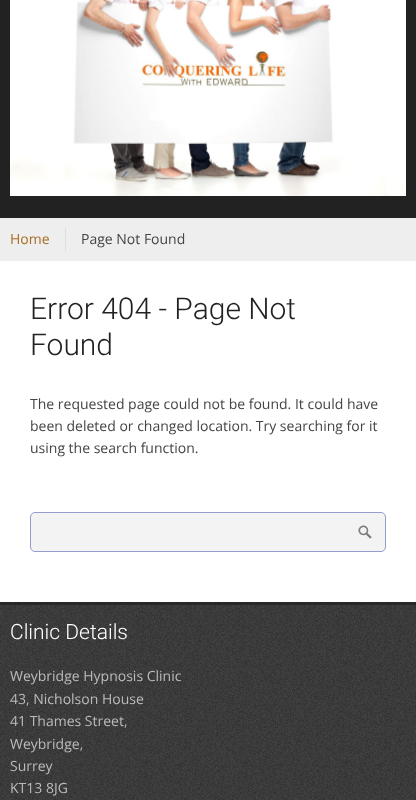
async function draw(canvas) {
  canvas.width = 416
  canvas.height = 800
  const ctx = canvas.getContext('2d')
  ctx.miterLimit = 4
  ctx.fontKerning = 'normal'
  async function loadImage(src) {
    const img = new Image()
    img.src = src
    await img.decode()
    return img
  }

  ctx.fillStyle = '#333'
  ctx.fillRect(0, 0, 416, 800)
  ctx.fillStyle = '#222'
  ctx.fillRect(0, 0, 416, 218)
  ctx.drawImage(await loadImage('image0.png'), 10, 0, 396, 196)
  ctx.fillStyle = '#fff'
  ctx.fillRect(0, 261, 416, 341)
  ctx.fillStyle = '#eee'
  ctx.fillRect(0, 218, 416, 43)
  ctx.fillStyle = '#ddd'
  ctx.fillRect(65, 228, 1, 23)
  ctx.font = '14px Open Sans'
  ctx.fillStyle = '#a86d22'
  ctx.fillText('Home', 10, 244)
  ctx.fillStyle = '#444'
  ctx.fillText('Page Not Found', 81, 244)
  ctx.font = '300 30px Roboto'
  ctx.fillStyle = '#222'
  ctx.fillText('Error 404 - Page Not', 30, 319)
  ctx.fillText('Found', 30, 355)
  ctx.font = '14px Open Sans'
  ctx.fillStyle = '#444'
  ctx.fillText('The requested page could not be found. It could have', 30, 409)
  ctx.fillText('been deleted or changed location. Try searching for it', 30, 431)
  ctx.fillText('using the search function.', 30, 453)
  ctx.fillStyle = '#f3f3f3'
  ctx.beginPath()
  ctx.roundRect(30.5, 512.5, 355, 39, 4.5)
  ctx.fill()
  ctx.strokeStyle = '#929dcb'
  ctx.stroke()
  ctx.drawImage(await loadImage('image1.png'), 358, 525, 14, 14)
  ctx.drawImage(await loadImage('image2.png'), 0, 605, 416, 195)
  ctx.fillStyle = '#282828'
  ctx.fillRect(0, 602, 416, 3)
  ctx.font = '300 21px Roboto'
  ctx.fillStyle = '#fff'
  ctx.fillText('Clinic Details', 10, 639)
  ctx.font = '14px Open Sans'
  ctx.fillStyle = '#bbb'
  ctx.fillText('Weybridge Hypnosis Clinic', 10, 681)
  ctx.fillText('43, Nicholson House', 10, 704)
  ctx.fillText('41 Thames Street,', 10, 726)
  ctx.fillText('Weybridge,', 10, 749)
  ctx.fillText('Surrey', 10, 771)
  ctx.fillText('KT13 8JG', 10, 793)
}

draw(document.querySelector('canvas'))
